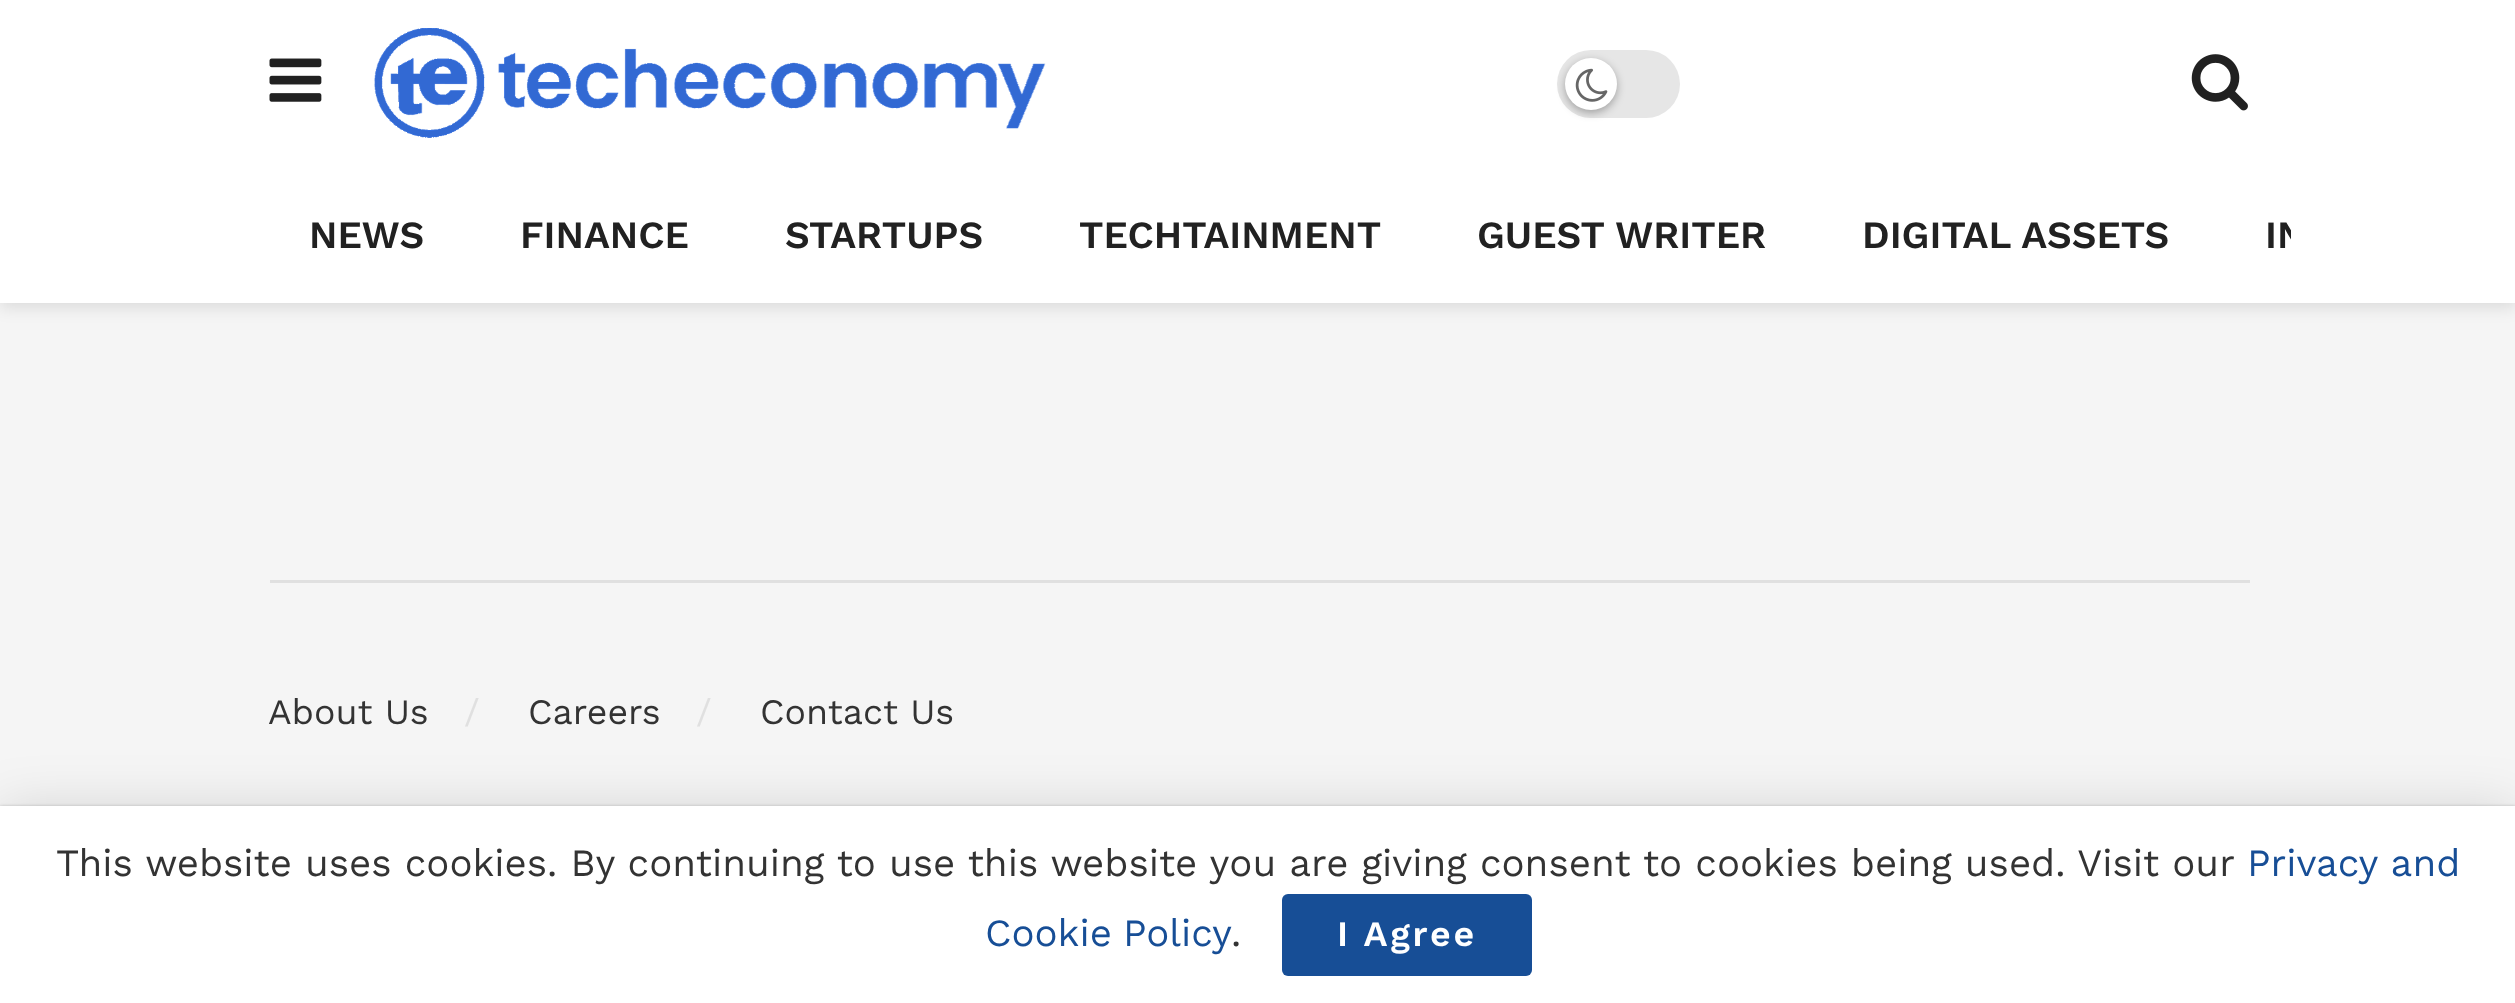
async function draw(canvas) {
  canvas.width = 2515
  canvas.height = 1003
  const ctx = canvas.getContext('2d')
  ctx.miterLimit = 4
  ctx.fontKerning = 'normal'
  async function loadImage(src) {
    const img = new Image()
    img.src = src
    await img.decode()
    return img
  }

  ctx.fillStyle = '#f5f5f5'
  ctx.fillRect(0, 0, 2515, 1003)
  ctx.fillStyle = '#0000001a'
  ctx.filter = 'blur(8px)'
  ctx.beginPath()
  ctx.rect(0, 6, 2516, 302)
  ctx.fill()
  ctx.filter = 'none'
  ctx.fillStyle = '#fff'
  ctx.fillRect(0, 0, 2515, 303)
  ctx.drawImage(await loadImage('image0.png'), 269, 58, 53, 44)
  ctx.drawImage(await loadImage('image1.png'), 374, 28, 672, 110)
  ctx.fillStyle = '#e6e6e6'
  ctx.beginPath()
  ctx.roundRect(1557, 50, 123, 68, 34)
  ctx.fill()
  ctx.fillStyle = '#0000004d'
  ctx.filter = 'blur(4px)'
  ctx.beginPath()
  ctx.roundRect(1565, 61, 52, 52, 26)
  ctx.fill()
  ctx.filter = 'none'
  ctx.fillStyle = '#fff'
  ctx.beginPath()
  ctx.arc(1591, 84, 26, 0, 2 * Math.PI)
  ctx.fill()
  ctx.drawImage(await loadImage('image2.png'), 1575, 68, 33, 34)
  ctx.drawImage(await loadImage('image3.png'), 2191, 54, 57, 57)
  ctx.font = '600 38.5px Work Sans'
  ctx.fillStyle = '#212121'
  ctx.fillText('NEWS', 309, 248)
  ctx.fillText('FINANCE', 520, 248)
  ctx.fillText('STARTUPS', 785, 248)
  ctx.fillText('TECHTAINMENT', 1079, 248)
  ctx.fillText('GUEST WRITER', 1477, 248)
  ctx.fillText('DIGITAL ASSETS', 1862, 248)
  ctx.save()
  ctx.beginPath()
  ctx.rect(228, 165, 2063, 138)
  ctx.clip()
  ctx.fillText('IN', 2265, 248)
  ctx.restore()
  ctx.fillStyle = '#e0e0e0'
  ctx.fillRect(270, 580, 1980, 3)
  ctx.font = '35.75px Work Sans'
  ctx.fillStyle = '#333'
  ctx.fillText('About Us', 268, 724)
  ctx.fillStyle = '#e0e0e0'
  ctx.fillText('/', 464, 724)
  ctx.fillStyle = '#333'
  ctx.fillText('Careers', 528, 724)
  ctx.fillStyle = '#e0e0e0'
  ctx.fillText('/', 696, 724)
  ctx.fillStyle = '#333'
  ctx.fillText('Contact Us', 760, 724)
  ctx.fillStyle = '#00000026'
  ctx.filter = 'blur(27.5px)'
  ctx.beginPath()
  ctx.rect(0, 811, 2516, 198)
  ctx.fill()
  ctx.filter = 'none'
  ctx.fillStyle = '#00000033'
  ctx.filter = 'blur(1.5px)'
  ctx.beginPath()
  ctx.rect(0, 806, 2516, 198)
  ctx.fill()
  ctx.filter = 'none'
  ctx.fillStyle = '#fff'
  ctx.fillRect(0, 806, 2515, 197)
  ctx.font = '38.5px Work Sans'
  ctx.fillStyle = '#333'
  ctx.fillText('This website uses cookies. By continuing to use this website you are giving consent to cookies being used. Visit our', 56, 876)
  ctx.fillStyle = '#174e96'
  ctx.fillText('Privacy and', 2247, 876)
  ctx.wordSpacing = '-2px'
  ctx.fillText('Cookie Policy', 985, 946)
  ctx.wordSpacing = '0px'
  ctx.fillStyle = '#333'
  ctx.fillText('.', 1231, 946)
  ctx.fillStyle = '#174e96'
  ctx.beginPath()
  ctx.roundRect(1282, 894, 250, 82, 6)
  ctx.fill()
  ctx.letterSpacing = '2.75px'
  ctx.font = '600 35.75px Work Sans'
  ctx.fillStyle = '#fff'
  ctx.fillText('I Agree', 1337, 946)
}

draw(document.querySelector('canvas'))
